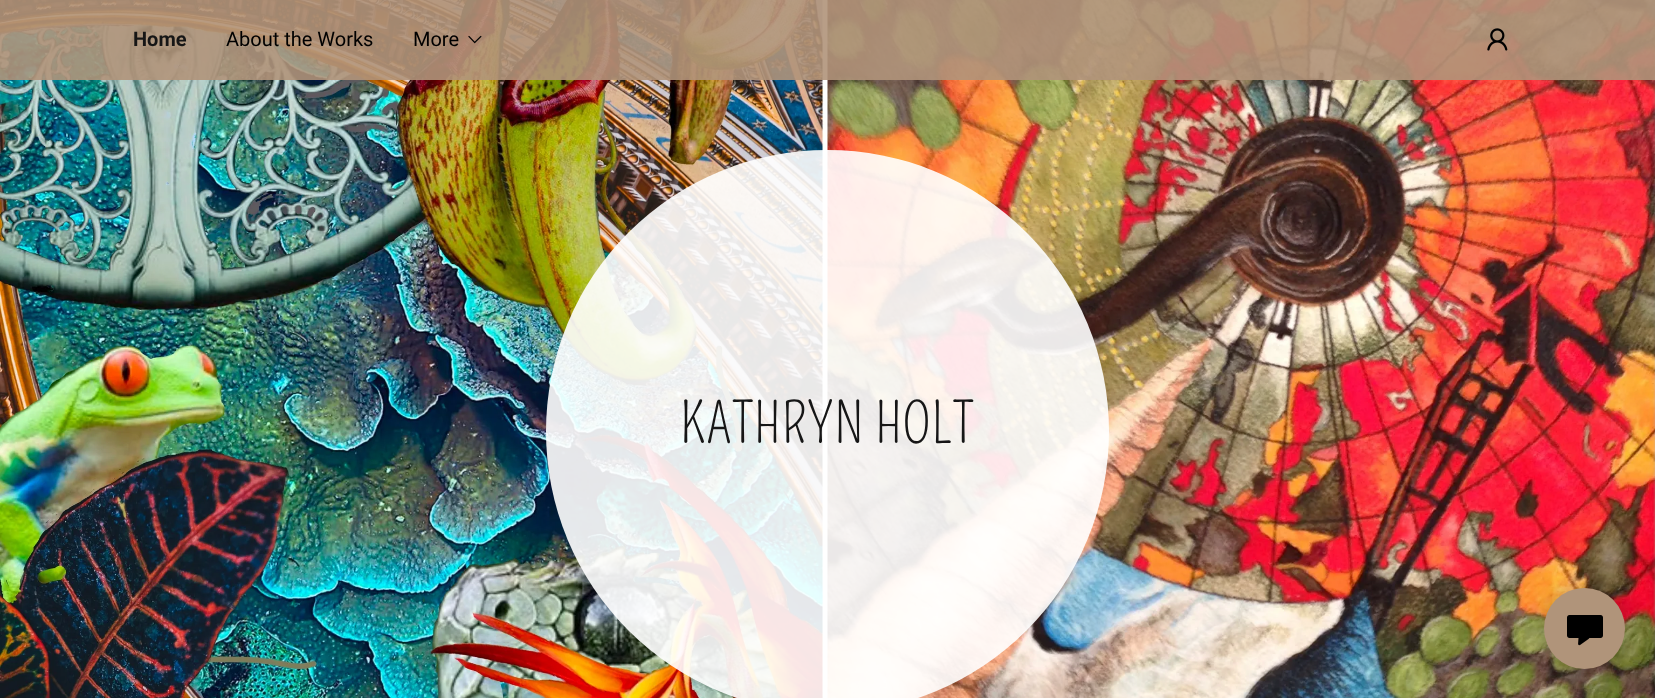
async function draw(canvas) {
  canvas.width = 1655
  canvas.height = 698
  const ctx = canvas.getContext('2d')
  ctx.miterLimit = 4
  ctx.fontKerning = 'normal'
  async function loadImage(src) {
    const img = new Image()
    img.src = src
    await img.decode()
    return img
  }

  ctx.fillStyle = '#fff'
  ctx.fillRect(0, 0, 1655, 698)
  ctx.drawImage(await loadImage('image0.png'), 0, 0, 828, 698)
  ctx.drawImage(await loadImage('image1.png'), 827, 0, 828, 698)
  ctx.fillStyle = '#b0947ae6'
  ctx.fillRect(0, 0, 1655, 80)
  ctx.font = 'bold 20px Roboto'
  ctx.fillStyle = '#161616'
  ctx.fillText('Home', 133, 46)
  ctx.font = '20px Roboto'
  ctx.fillStyle = '#000'
  ctx.fillText('About the Works', 226, 46)
  ctx.fillText('More', 413, 46)
  ctx.drawImage(await loadImage('image2.png'), 468, 35, 14, 9)
  ctx.drawImage(await loadImage('image3.png'), 1487, 28, 21, 23)
  ctx.fillStyle = '#ffffffe6'
  ctx.beginPath()
  ctx.arc(827.5, 431.5, 281.5, 0, 2 * Math.PI)
  ctx.fill()
  ctx.letterSpacing = '1.1px'
  ctx.font = '55px Pompiere'
  ctx.fillStyle = '#161616'
  ctx.fillText('KATHRYN HOLT', 680, 443)
  ctx.fillStyle = '#00000040'
  ctx.filter = 'blur(11px)'
  ctx.beginPath()
  ctx.roundRect(1544, 591, 81, 82, 40.5)
  ctx.fill()
  ctx.filter = 'none'
  ctx.fillStyle = '#b0947a'
  ctx.beginPath()
  ctx.arc(1584.5, 628.5, 40.5, 0, 2 * Math.PI)
  ctx.fill()
  ctx.drawImage(await loadImage('image4.png'), 1567, 615, 36, 31)
}

draw(document.querySelector('canvas'))
